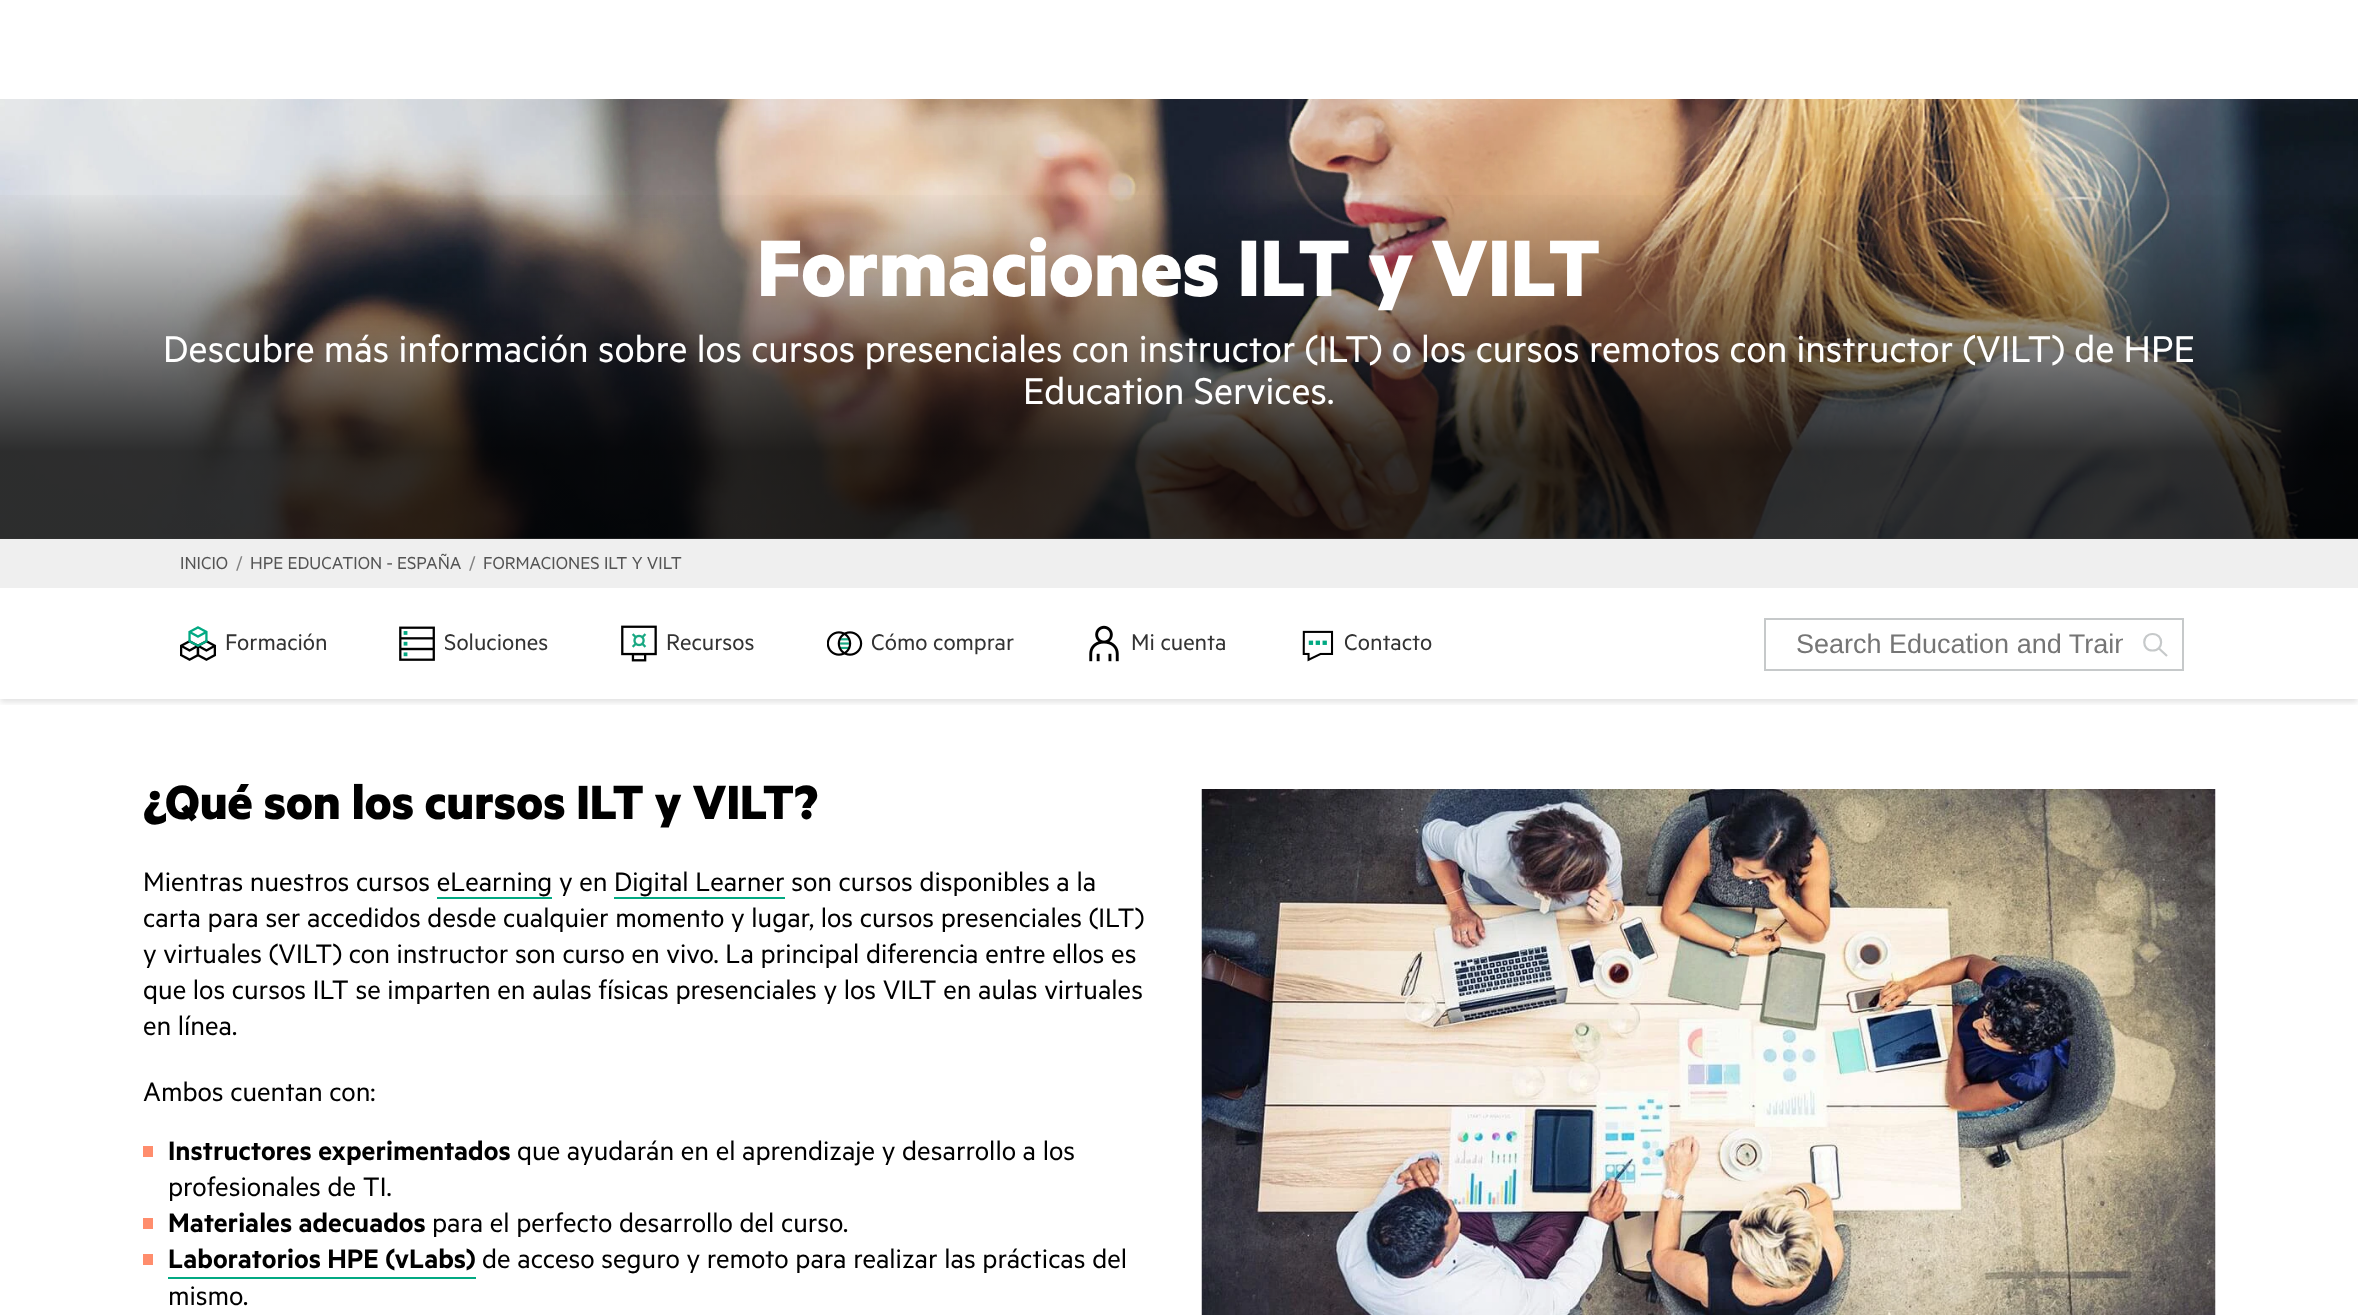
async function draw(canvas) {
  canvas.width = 2358
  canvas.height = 1315
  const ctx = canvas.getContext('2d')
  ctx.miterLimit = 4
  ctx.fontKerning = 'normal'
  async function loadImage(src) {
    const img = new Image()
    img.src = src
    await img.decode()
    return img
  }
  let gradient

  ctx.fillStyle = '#fff'
  ctx.fillRect(0, 0, 2358, 1315)
  ctx.drawImage(await loadImage('image0.png'), 0, 99, 2358, 440)
  gradient = ctx.createLinearGradient(1179, 539, 1179, 188)
  gradient.addColorStop(0, '#000000cc')
  gradient.addColorStop(0.25, '#000000cc')
  gradient.addColorStop(1, '#00000000')
  ctx.fillStyle = gradient
  ctx.fillRect(0, 195, 2358, 344)
  ctx.font = 'bold 90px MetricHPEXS'
  ctx.fillStyle = '#fff'
  ctx.fillText('Formaciones ILT y VILT', 757, 296)
  ctx.font = '42px MetricHPEXS'
  ctx.fillText('Descubre más información sobre los cursos presenciales con instructor (ILT) o los cursos remotos con instructor (VILT) de HPE', 163, 362)
  ctx.fillText('Education Services.', 1023, 404)
  ctx.fillStyle = '#efefef'
  ctx.fillRect(0, 539, 2358, 49)
  ctx.font = '19.5px MetricHPEXS'
  ctx.fillStyle = '#545454'
  ctx.fillText('INICIO', 180, 569)
  ctx.fillStyle = '#808080'
  ctx.fillText('/', 236, 569)
  ctx.fillStyle = '#545454'
  ctx.fillText('HPE EDUCATION - ESPAÑA', 250, 569)
  ctx.fillStyle = '#808080'
  ctx.fillText('/', 469, 569)
  ctx.fillStyle = '#545454'
  ctx.fillText('FORMACIONES ILT Y VILT', 483, 569)
  ctx.save()
  ctx.beginPath()
  ctx.rect(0, 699, 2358, 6)
  ctx.clip()
  ctx.fillStyle = '#0000001f'
  ctx.filter = 'blur(3px)'
  ctx.beginPath()
  ctx.rect(0, 591, 2358, 111)
  ctx.fill()
  ctx.filter = 'none'
  ctx.restore()
  ctx.drawImage(await loadImage('image1.png'), 180, 626, 36, 35)
  ctx.font = '25.5px MetricHPEXS'
  ctx.fillStyle = '#333'
  ctx.fillText('Formación', 225, 650)
  ctx.drawImage(await loadImage('image2.png'), 399, 626, 36, 35)
  ctx.fillText('Soluciones', 444, 650)
  ctx.drawImage(await loadImage('image3.png'), 621, 625, 36, 37)
  ctx.fillText('Recursos', 666, 650)
  ctx.drawImage(await loadImage('image4.png'), 827, 631, 36, 25)
  ctx.fillText('Cómo comprar', 871, 650)
  ctx.drawImage(await loadImage('image5.png'), 1089, 625, 30, 37)
  ctx.fillText('Mi cuenta', 1131, 650)
  ctx.drawImage(await loadImage('image6.png'), 1302, 630, 32, 32)
  ctx.fillText('Contacto', 1344, 650)
  ctx.strokeStyle = '#c6c9ca'
  ctx.lineWidth = 2
  ctx.strokeRect(1765, 619, 418, 51)
  ctx.save()
  ctx.beginPath()
  ctx.rect(1796, 629, 327, 31)
  ctx.clip()
  ctx.font = '27px Liberation Sans'
  ctx.fillStyle = '#757575'
  ctx.fillText('Search Education and Train', 1796, 653)
  ctx.restore()
  ctx.beginPath()
  ctx.moveTo(2159, 648.5)
  ctx.lineTo(2167, 656)
  ctx.closePath()
  ctx.moveTo(2152.5, 650.5)
  ctx.bezierCurveTo(2164, 650.5, 2164, 634, 2152.5, 634)
  ctx.bezierCurveTo(2141.5, 634, 2141.5, 650.5, 2152.5, 650.5)
  ctx.closePath()
  ctx.lineWidth = 2.2
  ctx.stroke()
  ctx.font = 'bold 54px MetricHPEXS'
  ctx.fillStyle = '#000'
  ctx.fillText('¿Qué son los cursos ILT y VILT?', 143, 819)
  ctx.drawImage(await loadImage('image7.png'), 1201, 789, 1015, 526)
  ctx.font = '30px MetricHPEXS'
  ctx.fillText('Mientras nuestros cursos eLearning y en Digital Learner son cursos disponibles a la', 143, 891)
  ctx.fillStyle = '#01a982'
  ctx.fillRect(437, 897, 115, 2)
  ctx.fillRect(614, 897, 171, 2)
  ctx.fillStyle = '#000'
  ctx.fillText('carta para ser accedidos desde cualquier momento y lugar, los cursos presenciales (ILT)', 143, 927)
  ctx.fillText('y virtuales (VILT) con instructor son curso en vivo. La principal diferencia entre ellos es', 143, 963)
  ctx.fillText('que los cursos ILT se imparten en aulas físicas presenciales y los VILT en aulas virtuales', 143, 999)
  ctx.fillText('en línea.', 143, 1035)
  ctx.fillText('Ambos cuentan con:', 143, 1101)
  ctx.fillStyle = '#ff8d6d'
  ctx.fillRect(143, 1146, 10, 11)
  ctx.font = '600 30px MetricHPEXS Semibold'
  ctx.fillStyle = '#000'
  ctx.fillText('Instructores experimentados', 168, 1160)
  ctx.font = '30px MetricHPEXS'
  ctx.fillText('que ayudarán en el aprendizaje y desarrollo a los', 517, 1160)
  ctx.fillText('profesionales de TI.', 168, 1196)
  ctx.fillStyle = '#ff8d6d'
  ctx.fillRect(143, 1218, 10, 11)
  ctx.font = '600 30px MetricHPEXS Semibold'
  ctx.fillStyle = '#000'
  ctx.fillText('Materiales adecuados', 168, 1232)
  ctx.font = '30px MetricHPEXS'
  ctx.fillText('para el perfecto desarrollo del curso.', 432, 1232)
  ctx.fillStyle = '#ff8d6d'
  ctx.fillRect(143, 1254, 10, 11)
  ctx.fillStyle = '#01a982'
  ctx.fillRect(168, 1277, 308, 2)
  ctx.font = '600 30px MetricHPEXS Semibold'
  ctx.fillStyle = '#000'
  ctx.fillText('Laboratorios HPE (vLabs)', 168, 1268)
  ctx.font = '30px MetricHPEXS'
  ctx.fillText('de acceso seguro y remoto para realizar las prácticas del', 482, 1268)
  ctx.fillText('mismo.', 168, 1305)
}

draw(document.querySelector('canvas'))
